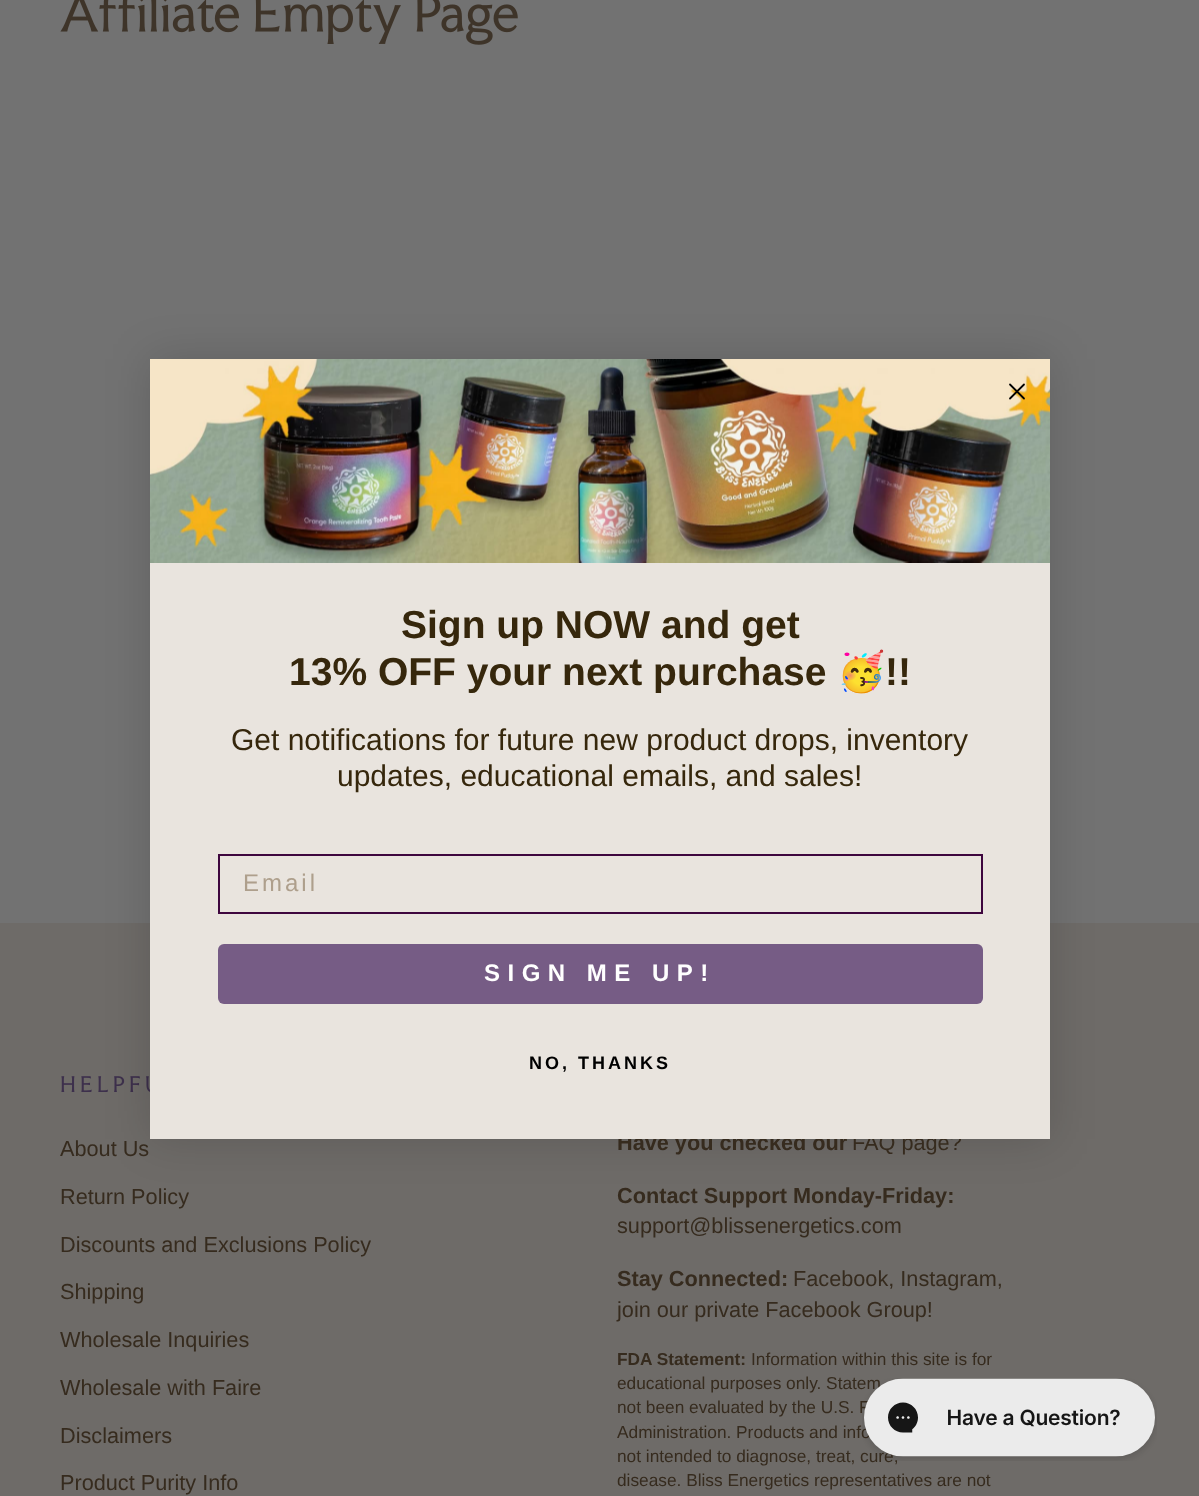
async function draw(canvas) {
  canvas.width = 1199
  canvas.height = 1496
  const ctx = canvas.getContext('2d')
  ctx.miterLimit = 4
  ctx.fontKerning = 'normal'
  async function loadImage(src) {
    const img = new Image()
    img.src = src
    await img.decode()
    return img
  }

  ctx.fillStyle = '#727272'
  ctx.fillRect(0, 0, 1199, 1496)
  ctx.fillStyle = '#6e6b68'
  ctx.fillRect(0, 923, 1199, 573)
  ctx.drawImage(await loadImage('image2.png'), 61, 1076, 89, 16)
  ctx.fillStyle = '#00000026'
  ctx.filter = 'blur(22.5px)'
  ctx.beginPath()
  ctx.rect(150, 359, 900, 780)
  ctx.fill()
  ctx.filter = 'none'
  ctx.drawImage(await loadImage('image0.png'), 150, 359, 900, 204)
  ctx.beginPath()
  ctx.moveTo(1010, 384.5)
  ctx.lineTo(1024, 398.5)
  ctx.moveTo(1010, 398.5)
  ctx.lineTo(1024, 384.5)
  ctx.closePath()
  ctx.strokeStyle = '#000'
  ctx.lineWidth = 1.8
  ctx.lineCap = 'round'
  ctx.lineJoin = 'round'
  ctx.stroke()
  ctx.font = 'bold 21.7px Liberation Sans'
  ctx.fillStyle = '#362b1e'
  ctx.fillText('Have you checked our', 617, 1150)
  ctx.font = '21.7px Liberation Sans'
  ctx.fillText('FAQ page?', 852, 1150)
  ctx.fillStyle = '#e9e4de'
  ctx.fillRect(150, 563, 900, 576)
  ctx.font = 'bold 39px Liberation Sans'
  ctx.fillStyle = '#36270c'
  ctx.fillText('Sign up NOW and get', 401, 638)
  ctx.fillText('13% OFF your next purchase', 289, 685)
  ctx.font = 'bold 39px Noto Color Emoji'
  ctx.fillText('🥳', 837, 685)
  ctx.font = 'bold 39px Liberation Sans'
  ctx.fillText('!!', 885, 685)
  ctx.font = '30px Liberation Sans'
  ctx.fillText('Get notifications for future new product drops, inventory', 231, 750)
  ctx.fillText('updates, educational emails, and sales!', 337, 786)
  ctx.strokeStyle = '#3e063e'
  ctx.lineWidth = 2
  ctx.lineJoin = 'miter'
  ctx.strokeRect(219, 855, 763, 58)
  ctx.letterSpacing = '3px'
  ctx.font = '24px Liberation Sans'
  ctx.fillStyle = '#ae9f8c'
  ctx.fillText('Email', 243, 891)
  ctx.fillStyle = '#765c85'
  ctx.beginPath()
  ctx.roundRect(218, 944, 765, 60, 6)
  ctx.fill()
  ctx.letterSpacing = '7.5px'
  ctx.font = 'bold 24px Liberation Sans'
  ctx.fillStyle = '#fff'
  ctx.fillText('SIGN ME UP!', 484, 981)
  ctx.letterSpacing = '3px'
  ctx.font = 'bold 18px Liberation Sans'
  ctx.fillStyle = '#000'
  ctx.fillText('NO, THANKS', 529, 1069)
  ctx.drawImage(await loadImage('image1.png'), 60, 0, 458, 45)
  ctx.letterSpacing = '0px'
  ctx.font = '21.7px Liberation Sans'
  ctx.fillStyle = '#362b1e'
  ctx.fillText('About Us', 60, 1156)
  ctx.fillText('Return Policy', 60, 1204)
  ctx.fillText('Discounts and Exclusions Policy', 60, 1252)
  ctx.fillText('Shipping', 60, 1299)
  ctx.fillText('Wholesale Inquiries', 60, 1347)
  ctx.fillText('Wholesale with Faire', 60, 1395)
  ctx.fillText('Disclaimers', 60, 1443)
  ctx.fillText('Product Purity Info', 60, 1490)
  ctx.font = 'bold 21.7px Liberation Sans'
  ctx.fillText('Contact Support Monday-Friday:', 617, 1203)
  ctx.font = '21.7px Liberation Sans'
  ctx.fillText('support@blissenergetics.com', 617, 1233)
  ctx.font = 'bold 21.7px Liberation Sans'
  ctx.fillText('Stay Connected:', 617, 1286)
  ctx.font = '21.7px Liberation Sans'
  ctx.fillText('Facebook, Instagram,', 793, 1286)
  ctx.fillText('join our private Facebook Group!', 617, 1317)
  ctx.font = 'bold 17.3px Liberation Sans'
  ctx.fillText('FDA Statement:', 617, 1365)
  ctx.font = '17.3px Liberation Sans'
  ctx.fillText('Information within this site is for', 751, 1365)
  ctx.fillText('educational purposes only. Statem', 617, 1389)
  ctx.fillText('not been evaluated by the U.S. F', 617, 1413)
  ctx.fillText('Administration. Products and info', 617, 1438)
  ctx.fillText('not intended to diagnose, treat, cure,', 617, 1462)
  ctx.fillText('disease. Bliss Energetics representatives are not', 617, 1486)
  ctx.drawImage(await loadImage('image3.png'), 862, 1378, 295, 83)
}

draw(document.querySelector('canvas'))
